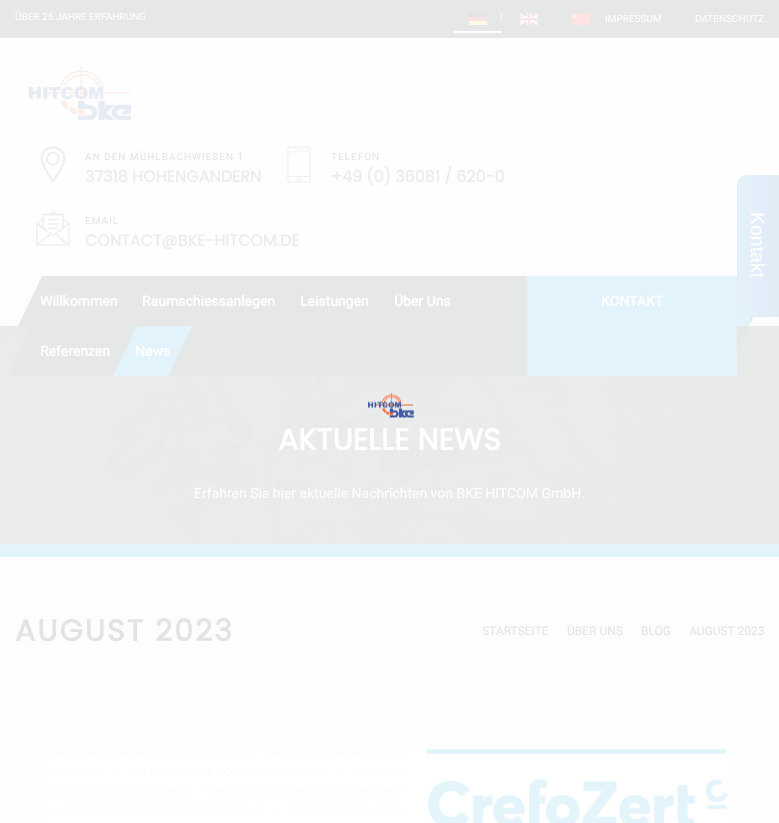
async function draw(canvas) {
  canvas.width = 779
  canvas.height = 823
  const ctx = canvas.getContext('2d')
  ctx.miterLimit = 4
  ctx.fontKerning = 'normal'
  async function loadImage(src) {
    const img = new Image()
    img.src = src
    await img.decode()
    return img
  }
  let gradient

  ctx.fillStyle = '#fdfdfd'
  ctx.fillRect(0, 0, 779, 823)
  ctx.fillStyle = '#e6e8e8'
  ctx.fillRect(0, 0, 779, 38)
  ctx.font = '10px Roboto'
  ctx.fillStyle = '#fff'
  ctx.fillText('ÜBER 25 JAHRE ERFAHRUNG', 15, 20)
  ctx.fillStyle = '#fefefe'
  ctx.fillRect(454, 31, 48, 2)
  ctx.drawImage(await loadImage('image0.png'), 469, 13, 18, 12)
  ctx.fillStyle = '#fff'
  ctx.fillText('|', 500, 20)
  ctx.drawImage(await loadImage('image1.png'), 520, 13, 18, 12)
  ctx.drawImage(await loadImage('image2.png'), 572, 13, 18, 12)
  ctx.fillText('IMPRESSUM', 605, 22)
  ctx.fillText('DATENSCHUTZ', 695, 22)
  ctx.drawImage(await loadImage('image3.png'), 0, 38, 779, 238)
  ctx.drawImage(await loadImage('image4.png'), 29, 67, 102, 53)
  ctx.drawImage(await loadImage('image5.png'), 40, 146, 26, 37)
  ctx.letterSpacing = '1px'
  ctx.fillStyle = '#e3e3e3'
  ctx.fillText('AN DEN MÜHLBACHWIESEN 1', 85, 160)
  ctx.letterSpacing = '0px'
  ctx.font = 'bold 16px Poppins'
  ctx.fillStyle = '#ececec'
  ctx.fillText('37318 HOHENGANDERN', 85, 182)
  ctx.drawImage(await loadImage('image6.png'), 287, 146, 24, 37)
  ctx.letterSpacing = '1px'
  ctx.font = '10px Roboto'
  ctx.fillStyle = '#e3e3e3'
  ctx.fillText('TELEFON', 331, 160)
  ctx.letterSpacing = '0px'
  ctx.font = 'bold 16px Poppins'
  ctx.fillStyle = '#ececec'
  ctx.fillText('+49 (0) 36081 / 620-0', 331, 182)
  ctx.drawImage(await loadImage('image7.png'), 36, 211, 34, 35)
  ctx.letterSpacing = '1px'
  ctx.font = '10px Roboto'
  ctx.fillStyle = '#e3e3e3'
  ctx.fillText('EMAIL', 85, 224)
  ctx.letterSpacing = '0px'
  ctx.font = 'bold 16px Poppins'
  ctx.fillStyle = '#ececec'
  ctx.fillText('CONTACT@BKE-HITCOM.DE', 85, 246)
  ctx.drawImage(await loadImage('image9.png'), 0, 326, 779, 218)
  ctx.fillStyle = '#e6e8e8'
  ctx.beginPath()
  ctx.moveTo(53, 276)
  ctx.lineTo(772, 276)
  ctx.lineTo(726, 376)
  ctx.lineTo(7, 376)
  ctx.closePath()
  ctx.fill()
  ctx.beginPath()
  ctx.moveTo(42, 276)
  ctx.lineTo(139, 276)
  ctx.lineTo(116, 326)
  ctx.lineTo(18, 326)
  ctx.closePath()
  ctx.fill()
  ctx.font = 'bold 14px Roboto'
  ctx.fillStyle = '#fff'
  ctx.fillText('Willkommen', 40, 306)
  ctx.fillText('Raumschiessanlagen', 142, 306)
  ctx.fillText('Leistungen', 300, 306)
  ctx.fillText('Über Uns', 394, 306)
  ctx.fillText('Referenzen', 40, 356)
  ctx.fillStyle = '#e3f3fc'
  ctx.beginPath()
  ctx.moveTo(137, 326)
  ctx.lineTo(192, 326)
  ctx.lineTo(168, 376)
  ctx.lineTo(113, 376)
  ctx.closePath()
  ctx.fill()
  ctx.fillStyle = '#fff'
  ctx.fillText('News', 135, 356)
  ctx.fillStyle = '#e3f3fc'
  ctx.fillRect(527, 276, 210, 100)
  ctx.fillStyle = '#fff'
  ctx.fillText('KONTAKT', 601, 306)
  ctx.fillStyle = '#e3f3fc'
  ctx.fillRect(737, 276, 13, 50)
  ctx.drawImage(await loadImage('image8.png'), 368, 392, 46, 26)
  ctx.font = 'bold 30px Poppins'
  ctx.fillStyle = '#fff'
  ctx.fillText('AKTUELLE NEWS', 278, 450)
  ctx.font = '14px Roboto'
  ctx.fillText('Erfahren Sie hier aktuelle Nachrichten von BKE HITCOM GmbH.', 194, 498)
  ctx.fillStyle = '#e3f3fc'
  ctx.fillRect(0, 544, 779, 13)
  ctx.letterSpacing = '2px'
  ctx.font = 'bold 30px Poppins'
  ctx.fillStyle = '#e3e3e3'
  ctx.fillText('AUGUST 2023', 15, 641)
  ctx.letterSpacing = '0px'
  ctx.font = '12px Roboto'
  ctx.fillText('STARTSEITE', 482, 635)
  ctx.fillText('ÜBER UNS', 567, 635)
  ctx.fillText('BLOG', 641, 635)
  ctx.fillText('AUGUST 2023', 689, 635)
  ctx.drawImage(await loadImage('image10.png'), 47, 746, 682, 77)
  ctx.save()
  ctx.beginPath()
  ctx.roundRect(737, 175, 42, 142, [10, 0, 0, 10])
  ctx.clip()
  gradient = ctx.createLinearGradient(698, 246, 738, 246)
  gradient.addColorStop(0, '#e3f2f9')
  gradient.addColorStop(1, '#e3eaf9')
  ctx.fillStyle = gradient
  ctx.fillRect(737, 175, 1, 142)
  gradient = ctx.createLinearGradient(738, 246, 778, 246)
  gradient.addColorStop(0, '#e3f2f9')
  gradient.addColorStop(1, '#e3eaf9')
  ctx.fillStyle = gradient
  ctx.fillRect(738, 175, 40, 142)
  ctx.restore()
  gradient = ctx.createLinearGradient(778, 246, 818, 246)
  gradient.addColorStop(0, '#e3f2f9')
  gradient.addColorStop(1, '#e3eaf9')
  ctx.fillStyle = gradient
  ctx.fillRect(778, 175, 1, 142)
  ctx.fillStyle = '#e3e3e340'
  ctx.beginPath()
  ctx.moveTo(779, 175)
  ctx.lineTo(778, 176)
  ctx.lineTo(778, 316)
  ctx.lineTo(779, 317)
  ctx.closePath()
  ctx.fill()
  ctx.font = '19.5px Liberation Sans'
  ctx.fillStyle = '#fff'
  ctx.save()
  ctx.translate(751, 212)
  ctx.rotate(90 * Math.PI / 180)
  ctx.fillText('Kontakt', 0, 0)
  ctx.restore()
}

draw(document.querySelector('canvas'))
